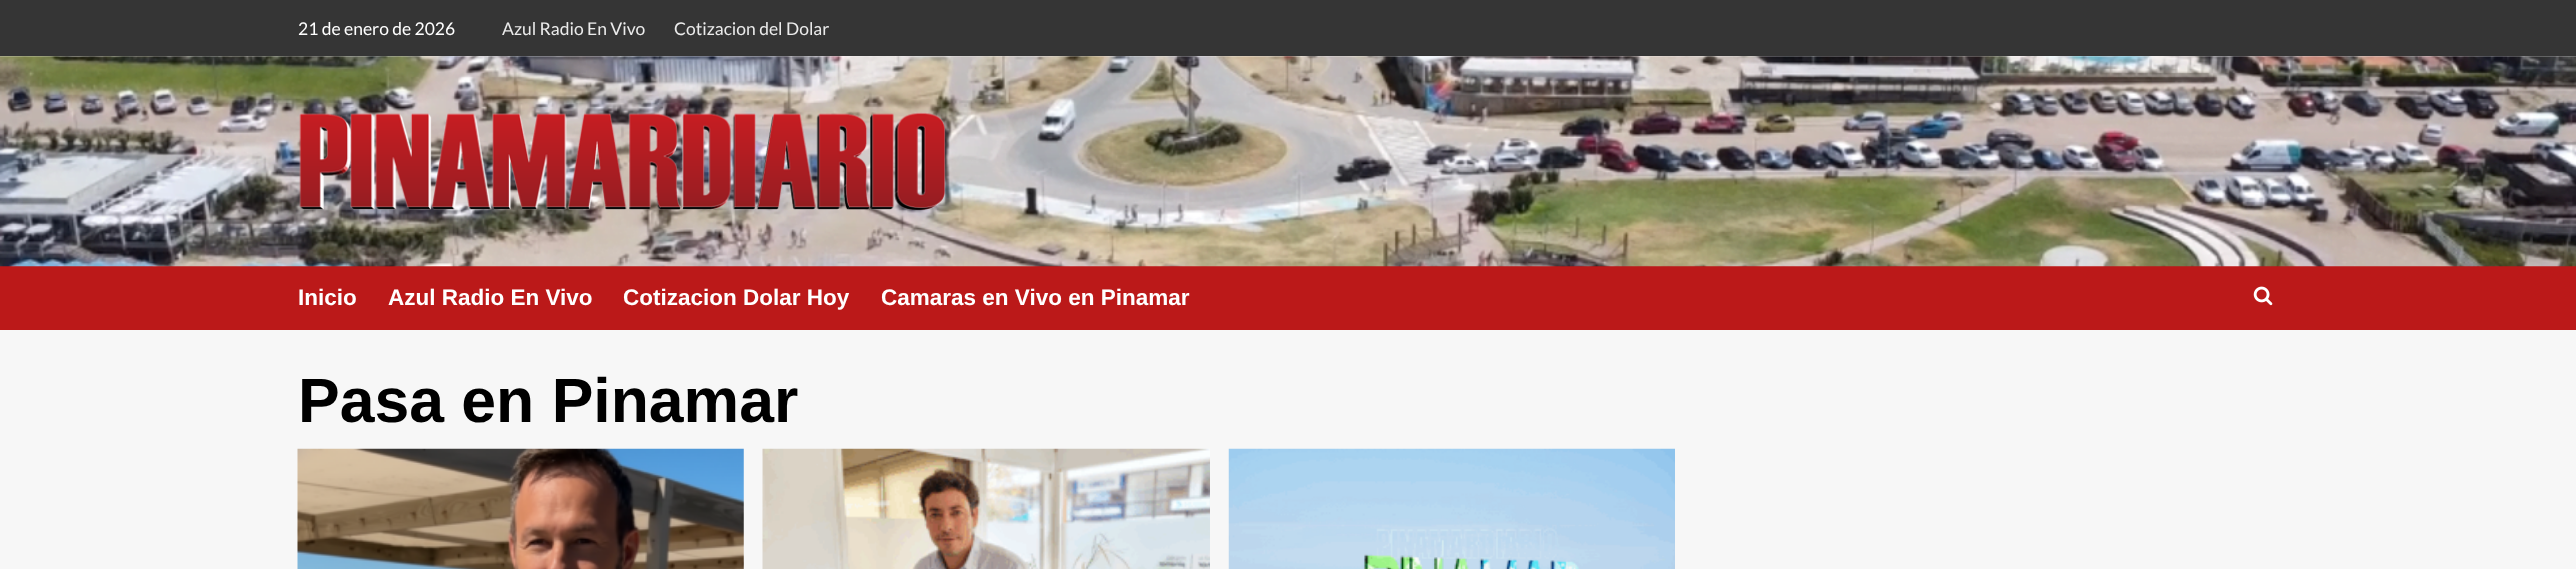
async function draw(canvas) {
  canvas.width = 2576
  canvas.height = 569
  const ctx = canvas.getContext('2d')
  ctx.miterLimit = 4
  ctx.fontKerning = 'normal'
  async function loadImage(src) {
    const img = new Image()
    img.src = src
    await img.decode()
    return img
  }

  ctx.fillStyle = '#f7f7f7'
  ctx.fillRect(0, 0, 2576, 569)
  ctx.fillStyle = '#353535'
  ctx.fillRect(0, 0, 2576, 56)
  ctx.font = '17.5px Lato'
  ctx.fillStyle = '#fff'
  ctx.fillText('21 de enero de 2026', 298, 35)
  ctx.fillStyle = '#ebebeb'
  ctx.fillText('Azul Radio En Vivo', 502, 35)
  ctx.fillText('Cotizacion del Dolar', 674, 35)
  ctx.fillStyle = '#bb1919'
  ctx.fillRect(0, 266, 2576, 64)
  ctx.drawImage(await loadImage('image0.png'), 0, 56, 2576, 211)
  ctx.drawImage(await loadImage('image1.png'), 299, 112, 646, 98)
  ctx.font = 'bold 22.5px Liberation Sans'
  ctx.fillStyle = '#fff'
  ctx.fillText('Inicio', 298, 305)
  ctx.fillText('Azul Radio En Vivo', 388, 305)
  ctx.fillText('Cotizacion Dolar Hoy', 623, 305)
  ctx.fillText('Camaras en Vivo en Pinamar', 881, 305)
  ctx.drawImage(await loadImage('image2.png'), 2253, 286, 20, 20)
  ctx.font = 'bold 62.5px Liberation Sans'
  ctx.fillStyle = '#000'
  ctx.fillText('Pasa en Pinamar', 298, 422)
  ctx.drawImage(await loadImage('image3.png'), 297, 448, 447, 121)
  ctx.drawImage(await loadImage('image4.png'), 762, 448, 448, 121)
  ctx.drawImage(await loadImage('image5.png'), 1228, 448, 447, 121)
}

draw(document.querySelector('canvas'))
